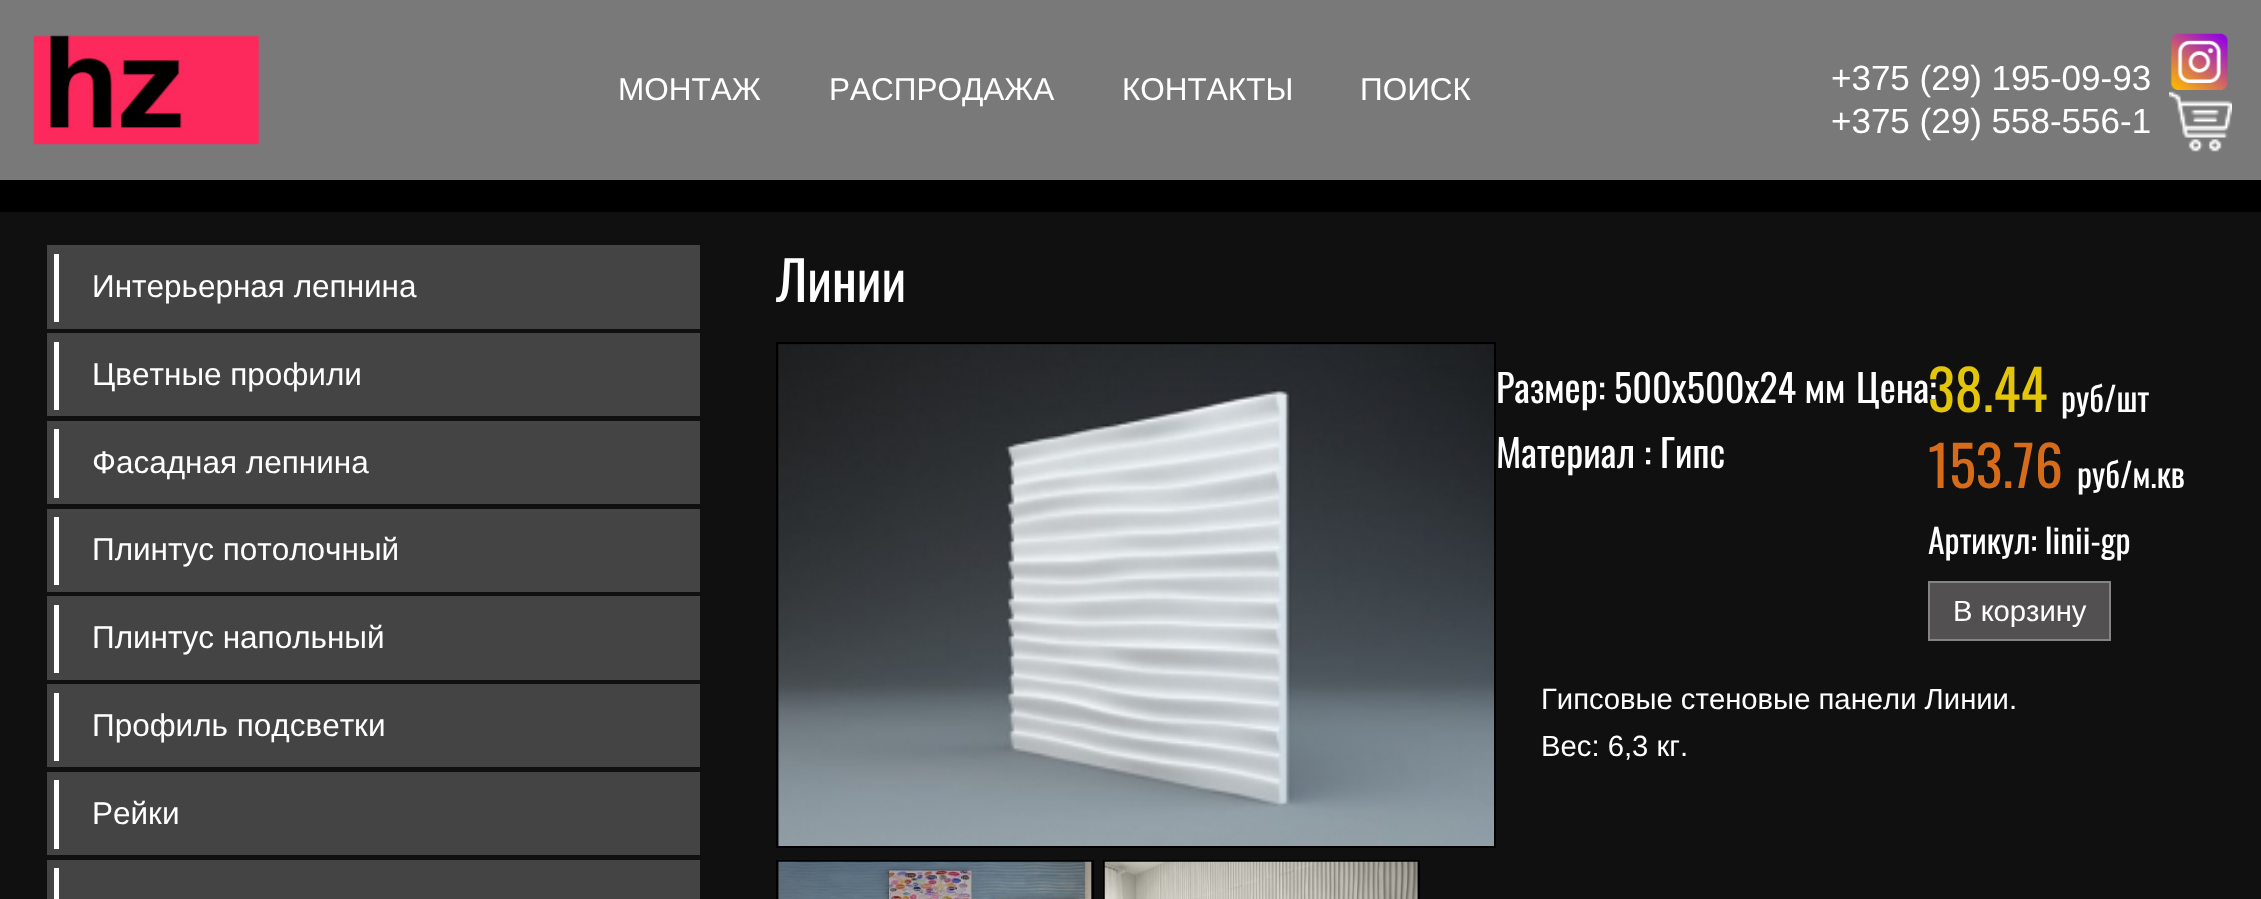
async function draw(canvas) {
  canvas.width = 2261
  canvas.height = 899
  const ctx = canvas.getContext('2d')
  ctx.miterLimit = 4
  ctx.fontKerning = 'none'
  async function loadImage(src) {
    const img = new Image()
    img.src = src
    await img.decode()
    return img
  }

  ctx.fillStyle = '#000'
  ctx.fillRect(0, 0, 2261, 899)
  ctx.fillStyle = '#101010'
  ctx.fillRect(0, 212, 2261, 687)
  ctx.fillStyle = '#797979'
  ctx.fillRect(0, 0, 2261, 180)
  ctx.drawImage(await loadImage('image0.png'), 33, 35, 226, 110)
  ctx.font = '31.5px Liberation Sans'
  ctx.fillStyle = '#fff'
  ctx.fillText('МОНТАЖ', 618, 100)
  ctx.fillText('РАСПРОДАЖА', 829, 100)
  ctx.fillText('КОНТАКТЫ', 1122, 100)
  ctx.fillText('ПОИСК', 1360, 100)
  ctx.font = '35px Liberation Sans'
  ctx.fillText('+375 (29) 195-09-93', 1831, 90)
  ctx.drawImage(await loadImage('image1.png'), 2170, 33, 58, 57)
  ctx.fillText('+375 (29) 558-556-1', 1831, 133)
  ctx.drawImage(await loadImage('image2.png'), 2169, 91, 63, 61)
  ctx.fillStyle = '#444'
  ctx.fillRect(47, 245, 653, 84)
  ctx.fillStyle = '#fff'
  ctx.fillRect(54, 254, 5, 68)
  ctx.font = '31.5px Liberation Sans'
  ctx.fillText('Интерьерная лепнина', 92, 297)
  ctx.fillStyle = '#444'
  ctx.fillRect(47, 333, 653, 83)
  ctx.fillStyle = '#fff'
  ctx.fillRect(54, 342, 5, 68)
  ctx.fillText('Цветные профили', 92, 385)
  ctx.fillStyle = '#444'
  ctx.fillRect(47, 421, 653, 83)
  ctx.fillStyle = '#fff'
  ctx.fillRect(54, 429, 5, 69)
  ctx.fillText('Фасадная лепнина', 92, 473)
  ctx.fillStyle = '#444'
  ctx.fillRect(47, 509, 653, 83)
  ctx.fillStyle = '#fff'
  ctx.fillRect(54, 517, 5, 68)
  ctx.fillText('Плинтус потолочный', 92, 560)
  ctx.fillStyle = '#444'
  ctx.fillRect(47, 596, 653, 84)
  ctx.fillStyle = '#fff'
  ctx.fillRect(54, 605, 5, 68)
  ctx.fillText('Плинтус напольный', 92, 648)
  ctx.fillStyle = '#444'
  ctx.fillRect(47, 684, 653, 83)
  ctx.fillStyle = '#fff'
  ctx.fillRect(54, 693, 5, 68)
  ctx.fillText('Профиль подсветки', 92, 736)
  ctx.fillStyle = '#444'
  ctx.fillRect(47, 772, 653, 83)
  ctx.fillStyle = '#fff'
  ctx.fillRect(54, 780, 5, 69)
  ctx.fillText('Рейки', 92, 824)
  ctx.fillStyle = '#444'
  ctx.fillRect(47, 860, 653, 39)
  ctx.fillStyle = '#fff'
  ctx.fillRect(54, 868, 5, 31)
  ctx.font = '54px Oswald'
  ctx.fillText('Линии', 776, 302)
  ctx.strokeStyle = '#000'
  ctx.lineWidth = 2
  ctx.strokeRect(777, 343, 718, 504)
  ctx.drawImage(await loadImage('image3.png'), 778, 344, 716, 502)
  ctx.strokeRect(777, 861, 316, 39)
  ctx.strokeRect(1104, 861, 315, 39)
  ctx.drawImage(await loadImage('image4.png'), 778, 861, 314, 38)
  ctx.drawImage(await loadImage('image5.png'), 1104, 861, 314, 38)
  ctx.font = '38.25px Oswald'
  ctx.fillText('Размер: 500x500x24 мм', 1496, 403)
  ctx.fillText('Материал : Гипс', 1496, 468)
  ctx.fillText('Цена:', 1856, 403)
  ctx.font = '56px Oswald'
  ctx.fillStyle = '#e3c509'
  ctx.fillText('38.44', 1928, 412)
  ctx.font = '33.75px Oswald'
  ctx.fillStyle = '#fff'
  ctx.fillText('руб/шт', 2061, 412)
  ctx.font = '56px Oswald'
  ctx.fillStyle = '#d66c1a'
  ctx.fillText('153.76', 1928, 488)
  ctx.font = '33.75px Oswald'
  ctx.fillStyle = '#fff'
  ctx.fillText('руб/м.кв', 2077, 488)
  ctx.fillText('Артикул: linii-gp', 1928, 554)
  ctx.fillStyle = '#525050'
  ctx.beginPath()
  ctx.rect(1929, 582, 181, 58)
  ctx.fill()
  ctx.strokeStyle = '#858384'
  ctx.stroke()
  ctx.font = '29.25px Liberation Sans'
  ctx.fillStyle = '#fff'
  ctx.fillText('В корзину', 1953, 621)
  ctx.fillText('Гипсовые стеновые панели Линии.', 1541, 709)
  ctx.fillText('Вес: 6,3 кг.', 1541, 756)
}

draw(document.querySelector('canvas'))
